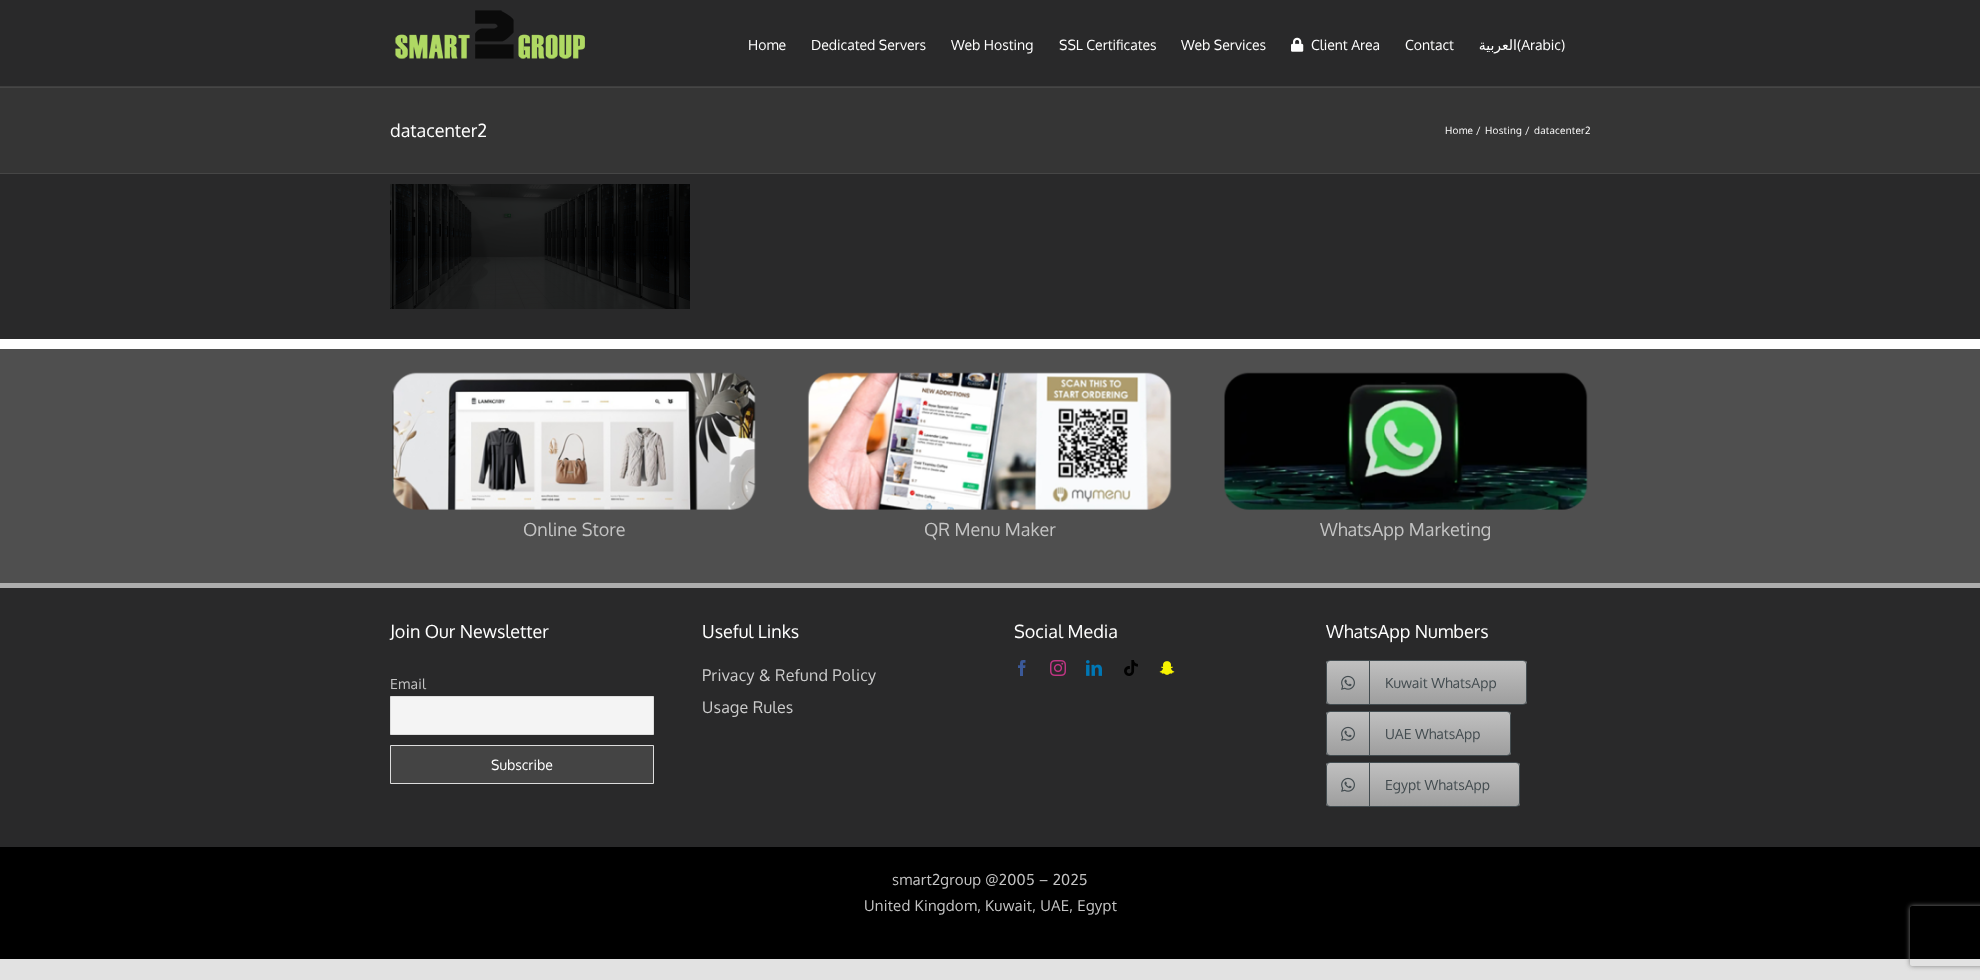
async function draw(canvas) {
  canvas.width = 1980
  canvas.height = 980
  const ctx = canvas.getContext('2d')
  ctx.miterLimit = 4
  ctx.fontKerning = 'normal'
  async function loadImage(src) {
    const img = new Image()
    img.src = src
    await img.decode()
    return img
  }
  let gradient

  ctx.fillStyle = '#e2e2e2'
  ctx.fillRect(0, 0, 1980, 980)
  ctx.fillStyle = '#29292a'
  ctx.fillRect(0, 0, 1980, 847)
  ctx.fillStyle = '#3e3e3e'
  ctx.fillRect(0, 86, 1980, 1)
  ctx.drawImage(await loadImage('image0.png'), 395, 10, 190, 49)
  ctx.font = '14px Oxygen'
  ctx.fillStyle = '#fff'
  ctx.fillText('Home', 748, 50)
  ctx.fillText('Dedicated Servers', 811, 50)
  ctx.fillText('Web Hosting', 951, 50)
  ctx.fillText('SSL Certificates', 1059, 50)
  ctx.fillText('Web Services', 1181, 50)
  ctx.drawImage(await loadImage('image1.png'), 1291, 37, 13, 15)
  ctx.fillText('Client Area', 1311, 50)
  ctx.fillText('Contact', 1405, 50)
  ctx.direction = 'rtl'
  ctx.font = '14px DejaVu Sans'
  ctx.fillText('العربية', 1517, 50)
  ctx.direction = 'ltr'
  ctx.font = '14px Oxygen'
  ctx.fillText('(Arabic)', 1517, 50)
  ctx.fillStyle = '#353535'
  ctx.fillRect(0, 88, 1980, 85)
  ctx.fillStyle = '#464646'
  ctx.fillRect(0, 87, 1980, 1)
  ctx.fillRect(0, 173, 1980, 1)
  ctx.font = '18px Oxygen'
  ctx.fillStyle = '#fff'
  ctx.fillText('datacenter2', 390, 137)
  ctx.letterSpacing = '0.25px'
  ctx.font = '10px Oxygen'
  ctx.fillText('Home', 1445, 134)
  ctx.fillText('/', 1476, 134)
  ctx.fillText('Hosting', 1485, 134)
  ctx.fillText('/', 1525, 134)
  ctx.fillText('datacenter2', 1534, 134)
  ctx.drawImage(await loadImage('image2.png'), 390, 184, 300, 125)
  ctx.fillStyle = '#4f4f4f'
  ctx.fillRect(0, 349, 1980, 234)
  ctx.fillStyle = '#fff'
  ctx.fillRect(0, 339, 1980, 10)
  ctx.drawImage(await loadImage('image3.png'), 392, 372, 364, 138)
  ctx.letterSpacing = '0px'
  ctx.font = '18px Oxygen'
  ctx.fillStyle = '#c4c4c4'
  ctx.fillText('Online Store', 523, 536)
  ctx.drawImage(await loadImage('image4.png'), 807, 372, 365, 138)
  ctx.fillText('QR Menu Maker', 924, 536)
  ctx.drawImage(await loadImage('image5.png'), 1224, 372, 364, 138)
  ctx.fillText('WhatsApp Marketing', 1320, 536)
  ctx.fillStyle = '#adadad'
  ctx.fillRect(0, 583, 1980, 5)
  ctx.fillStyle = '#fff'
  ctx.fillText('Join Our Newsletter', 390, 638)
  ctx.letterSpacing = '0.25px'
  ctx.font = '14px Oxygen'
  ctx.fillStyle = '#c4c4c4'
  ctx.fillText('Email', 390, 689)
  ctx.fillStyle = '#f4f4f4'
  ctx.beginPath()
  ctx.rect(390.5, 696.5, 263, 38)
  ctx.fill()
  ctx.strokeStyle = '#ddd'
  ctx.stroke()
  ctx.fillStyle = '#444'
  ctx.beginPath()
  ctx.rect(390.5, 745.5, 263, 38)
  ctx.fill()
  ctx.stroke()
  ctx.letterSpacing = '0px'
  ctx.fillStyle = '#fff'
  ctx.fillText('Subscribe', 491, 770)
  ctx.font = '18px Oxygen'
  ctx.fillText('Useful Links', 702, 638)
  ctx.letterSpacing = '0.25px'
  ctx.font = '16px Oxygen'
  ctx.fillStyle = '#ccc'
  ctx.fillText('Privacy & Refund Policy', 702, 681)
  ctx.fillText('Usage Rules', 702, 713)
  ctx.letterSpacing = '0px'
  ctx.font = '18px Oxygen'
  ctx.fillStyle = '#fff'
  ctx.fillText('Social Media', 1014, 638)
  ctx.drawImage(await loadImage('image6.png'), 1018, 660, 8, 16)
  ctx.drawImage(await loadImage('image7.png'), 1050, 660, 16, 16)
  ctx.drawImage(await loadImage('image8.png'), 1086, 660, 16, 16)
  ctx.drawImage(await loadImage('image9.png'), 1124, 660, 14, 16)
  ctx.drawImage(await loadImage('image10.png'), 1159, 661, 16, 14)
  ctx.fillText('WhatsApp Numbers', 1326, 638)
  ctx.save()
  ctx.beginPath()
  ctx.roundRect(1326, 660, 201, 45, 4)
  ctx.clip()
  gradient = ctx.createLinearGradient(1427, 704, 1427, 661)
  gradient.addColorStop(0, '#9e9e9e')
  gradient.addColorStop(1, '#c0c0c0')
  ctx.fillStyle = gradient
  ctx.fillRect(1326, 661, 201, 43)
  ctx.restore()
  ctx.beginPath()
  ctx.roundRect(1326.5, 660.5, 200, 44, 3.5)
  ctx.strokeStyle = '#434c50'
  ctx.stroke()
  ctx.fillStyle = '#434c50'
  ctx.fillRect(1369, 661, 1, 43)
  ctx.drawImage(await loadImage('image11.png'), 1341, 675, 14, 15)
  ctx.font = '14px Oxygen'
  ctx.fillText('Kuwait WhatsApp', 1385, 688)
  ctx.save()
  ctx.beginPath()
  ctx.roundRect(1326, 711, 185, 45, 4)
  ctx.clip()
  gradient = ctx.createLinearGradient(1419, 755, 1419, 712)
  gradient.addColorStop(0, '#9e9e9e')
  gradient.addColorStop(1, '#c0c0c0')
  ctx.fillStyle = gradient
  ctx.fillRect(1326, 712, 185, 43)
  ctx.restore()
  ctx.beginPath()
  ctx.roundRect(1326.5, 711.5, 184, 44, 3.5)
  ctx.stroke()
  ctx.fillRect(1369, 712, 1, 43)
  ctx.drawImage(await loadImage('image11.png'), 1341, 726, 14, 15)
  ctx.fillText('UAE WhatsApp', 1385, 739)
  ctx.save()
  ctx.beginPath()
  ctx.roundRect(1326, 762, 194, 45, 4)
  ctx.clip()
  gradient = ctx.createLinearGradient(1423, 806, 1423, 763)
  gradient.addColorStop(0, '#9e9e9e')
  gradient.addColorStop(1, '#c0c0c0')
  ctx.fillStyle = gradient
  ctx.fillRect(1326, 763, 194, 43)
  ctx.restore()
  ctx.beginPath()
  ctx.roundRect(1326.5, 762.5, 193, 44, 3.5)
  ctx.stroke()
  ctx.fillRect(1369, 763, 1, 43)
  ctx.drawImage(await loadImage('image11.png'), 1341, 777, 14, 15)
  ctx.fillText('Egypt WhatsApp', 1385, 790)
  ctx.fillStyle = '#000'
  ctx.fillRect(0, 847, 1980, 112)
  ctx.letterSpacing = '0.25px'
  ctx.font = '15px Oxygen'
  ctx.fillStyle = '#c4c4c4'
  ctx.fillText('smart2group @2005 – 2025', 892, 885)
  ctx.fillText('United Kingdom, Kuwait, UAE, Egypt', 864, 911)
  ctx.save()
  ctx.beginPath()
  ctx.moveTo(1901, 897)
  ctx.lineTo(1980, 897)
  ctx.lineTo(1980, 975)
  ctx.lineTo(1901, 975)
  ctx.closePath()
  ctx.moveTo(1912, 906)
  ctx.lineTo(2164, 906)
  ctx.bezierCurveTo(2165, 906, 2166, 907, 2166, 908)
  ctx.lineTo(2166, 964)
  ctx.bezierCurveTo(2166, 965, 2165, 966, 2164, 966)
  ctx.lineTo(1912, 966)
  ctx.bezierCurveTo(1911, 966, 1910, 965, 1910, 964)
  ctx.lineTo(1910, 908)
  ctx.bezierCurveTo(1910, 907, 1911, 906, 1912, 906)
  ctx.closePath()
  ctx.clip('evenodd')
  ctx.fillStyle = '#808080'
  ctx.filter = 'blur(2.5px)'
  ctx.beginPath()
  ctx.roundRect(1910, 906, 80, 60, 2)
  ctx.fill()
  ctx.filter = 'none'
  ctx.restore()
}

draw(document.querySelector('canvas'))
